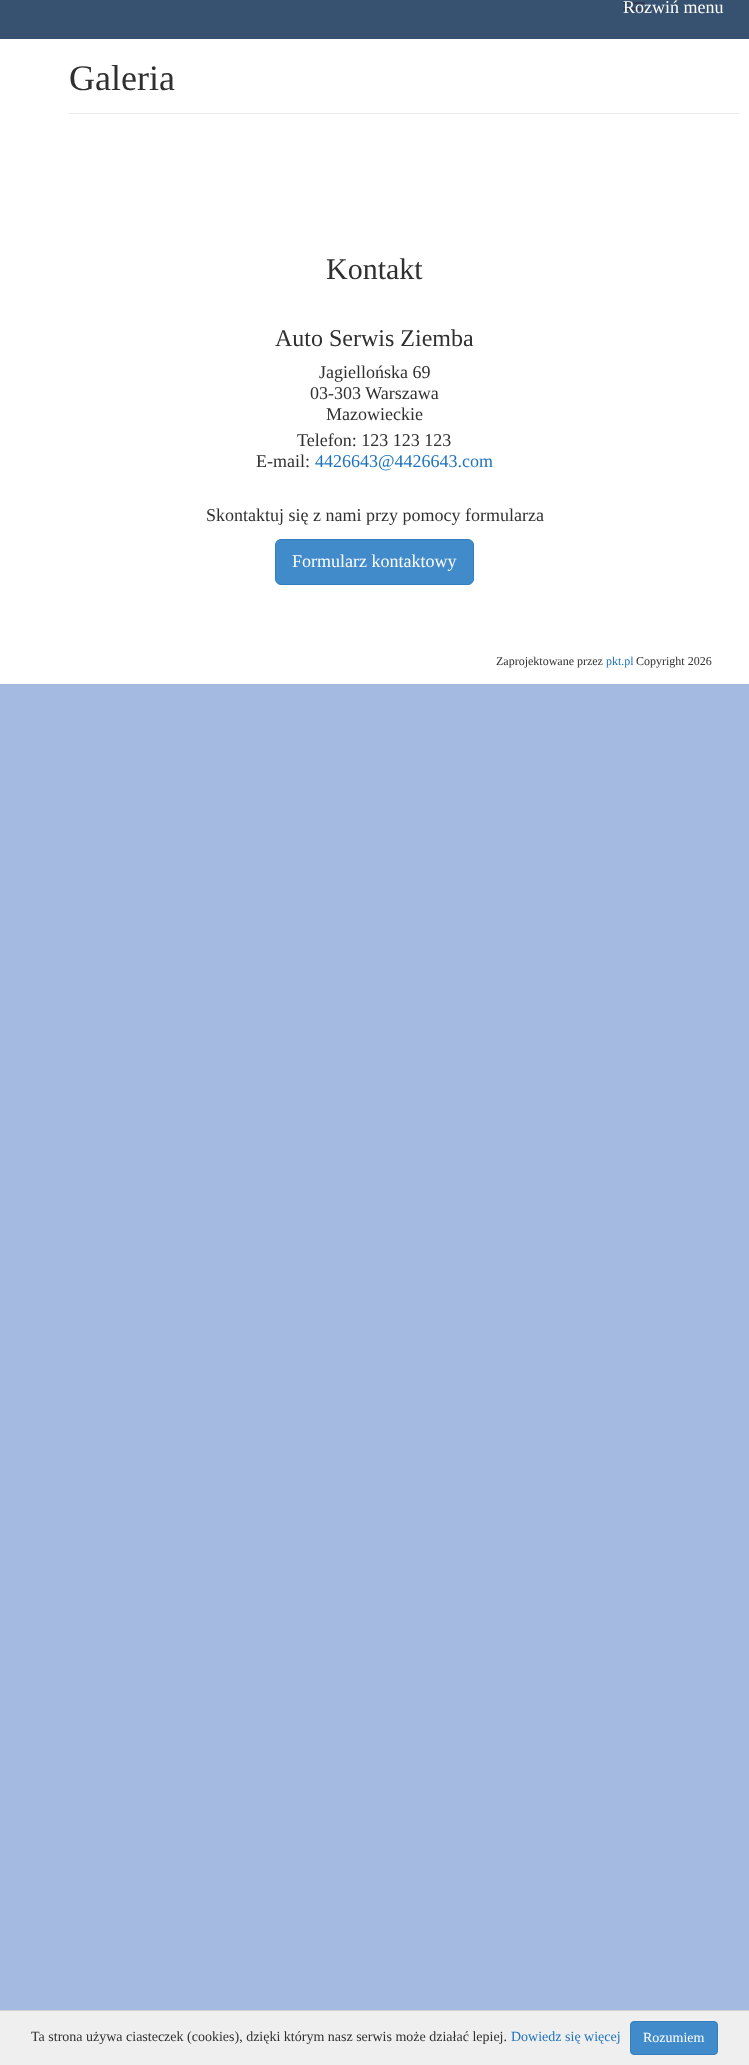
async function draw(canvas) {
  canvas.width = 749
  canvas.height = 2065
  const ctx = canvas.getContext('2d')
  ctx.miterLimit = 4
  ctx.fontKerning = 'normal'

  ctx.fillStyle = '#a4bae1'
  ctx.fillRect(0, 0, 749, 2065)
  ctx.fillStyle = '#375270'
  ctx.fillRect(0, 0, 749, 39)
  ctx.fillStyle = '#323b4d'
  ctx.beginPath()
  ctx.roundRect(623, 2, 22, 2, 1)
  ctx.fill()
  ctx.beginPath()
  ctx.roundRect(623, 8, 22, 2, 1)
  ctx.fill()
  ctx.font = '18px Liberation Serif'
  ctx.fillStyle = '#fff'
  ctx.fillText('Rozwiń menu', 623, 13)
  ctx.fillRect(0, 39, 749, 645)
  ctx.fillStyle = '#eaeaea'
  ctx.fillRect(69, 113, 670, 1)
  ctx.font = '36px Liberation Serif'
  ctx.fillStyle = '#303030'
  ctx.fillText('Galeria', 69, 90)
  ctx.font = '30px Liberation Serif'
  ctx.fillText('Kontakt', 326, 279)
  ctx.font = '24px Liberation Serif'
  ctx.fillText('Auto Serwis Ziemba', 275, 346)
  ctx.font = '18px Liberation Serif'
  ctx.fillText('Jagiellońska 69', 319, 378)
  ctx.fillText('03-303 Warszawa', 310, 399)
  ctx.fillText('Mazowieckie', 326, 420)
  ctx.fillText('Telefon: 123 123 123', 297, 446)
  ctx.fillText('E-mail:', 256, 467)
  ctx.fillStyle = '#1e73be'
  ctx.fillText('4426643@4426643.com', 315, 467)
  ctx.fillStyle = '#303030'
  ctx.fillText('Skontaktuj się z nami przy pomocy formularza', 206, 521)
  ctx.fillStyle = '#428bca'
  ctx.beginPath()
  ctx.roundRect(275.5, 539.5, 198, 45, 5.5)
  ctx.fill()
  ctx.strokeStyle = '#357ebd'
  ctx.stroke()
  ctx.fillStyle = '#fff'
  ctx.fillText('Formularz kontaktowy', 292, 567)
  ctx.font = '12px Liberation Serif'
  ctx.fillStyle = '#303030'
  ctx.fillText('Zaprojektowane przez', 496, 665)
  ctx.fillStyle = '#1e73be'
  ctx.fillText('pkt.pl', 606, 665)
  ctx.fillStyle = '#303030'
  ctx.fillText('Copyright 2026', 636, 665)
  ctx.fillStyle = '#efefef'
  ctx.fillRect(0, 2011, 749, 54)
  ctx.fillStyle = '#d3d0d0'
  ctx.fillRect(0, 2010, 749, 1)
  ctx.font = '14px Liberation Serif'
  ctx.fillStyle = '#303030'
  ctx.fillText('Ta strona używa ciasteczek (cookies), dzięki którym nasz serwis może działać lepiej.', 31, 2041)
  ctx.fillStyle = '#1e73be'
  ctx.fillText('Dowiedz się więcej', 511, 2041)
  ctx.fillStyle = '#428bca'
  ctx.beginPath()
  ctx.roundRect(630.5, 2021.5, 87, 33, 3.5)
  ctx.fill()
  ctx.stroke()
  ctx.fillStyle = '#fff'
  ctx.fillText('Rozumiem', 643, 2042)
}

draw(document.querySelector('canvas'))
